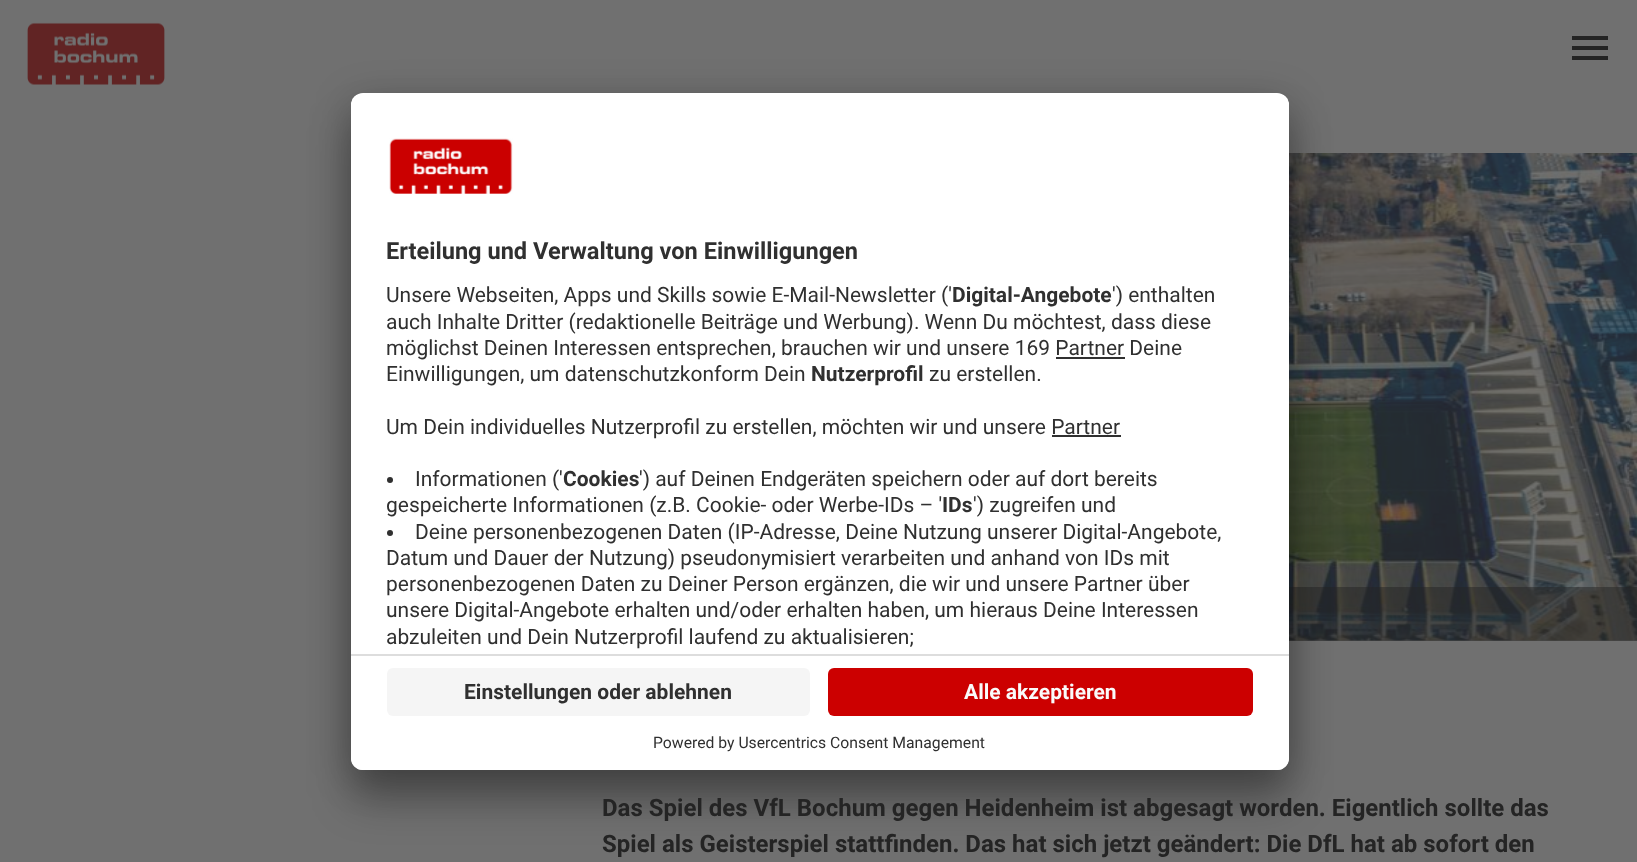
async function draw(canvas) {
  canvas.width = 1637
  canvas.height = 862
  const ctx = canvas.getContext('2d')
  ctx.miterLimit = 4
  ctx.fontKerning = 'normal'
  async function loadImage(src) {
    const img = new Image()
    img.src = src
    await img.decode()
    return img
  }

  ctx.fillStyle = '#707070'
  ctx.fillRect(0, 0, 1637, 862)
  ctx.drawImage(await loadImage('image2.png'), 1289, 153, 348, 488)
  ctx.fillStyle = '#24242480'
  ctx.fillRect(1289, 587, 348, 54)
  ctx.fillStyle = '#0000004d'
  ctx.filter = 'blur(21px)'
  ctx.beginPath()
  ctx.roundRect(351, 123, 938, 677, 12)
  ctx.fill()
  ctx.filter = 'none'
  ctx.fillStyle = '#00000038'
  ctx.filter = 'blur(19.5px)'
  ctx.beginPath()
  ctx.roundRect(351, 101, 938, 676, 12)
  ctx.fill()
  ctx.filter = 'none'
  ctx.fillStyle = '#fff'
  ctx.beginPath()
  ctx.roundRect(351, 93, 938, 677, 12)
  ctx.fill()
  ctx.save()
  ctx.beginPath()
  ctx.roundRect(351, 93, 938, 677, 12)
  ctx.clip()
  ctx.beginPath()
  ctx.roundRect(351, 93, 938, 561, [12, 12, 0, 0])
  ctx.clip()
  ctx.fillRect(351, 95, 938, 559)
  ctx.restore()
  ctx.drawImage(await loadImage('image0.png'), 389, 138, 124, 56)
  ctx.font = 'bold 23.6px Roboto'
  ctx.fillStyle = '#303030'
  ctx.fillText('Erteilung und Verwaltung von Einwilligungen', 386, 259)
  ctx.font = '21px Roboto'
  ctx.fillText('Unsere Webseiten, Apps und Skills sowie E-Mail-Newsletter (\'', 386, 302)
  ctx.font = 'bold 21px Roboto'
  ctx.fillText('Digital-Angebote', 952, 302)
  ctx.font = '21px Roboto'
  ctx.fillText('\') enthalten', 1112, 302)
  ctx.fillText('auch Inhalte Dritter (redaktionelle Beiträge und Werbung). Wenn Du möchtest, dass diese', 386, 329)
  ctx.fillText('möglichst Deinen Interessen entsprechen, brauchen wir und unsere 169 Partner Deine', 386, 355)
  ctx.fillRect(1056, 357, 69, 2)
  ctx.fillText('Einwilligungen, um datenschutzkonform Dein', 386, 381)
  ctx.font = 'bold 21px Roboto'
  ctx.fillText('Nutzerprofil', 811, 381)
  ctx.font = '21px Roboto'
  ctx.fillText('zu erstellen.', 929, 381)
  ctx.fillText('Um Dein individuelles Nutzerprofil zu erstellen, möchten wir und unsere Partner', 386, 434)
  ctx.fillRect(1052, 435, 69, 2)
  ctx.beginPath()
  ctx.arc(390, 480, 3, 0, 2 * Math.PI)
  ctx.fill()
  ctx.fillText('Informationen (\'', 415, 486)
  ctx.font = 'bold 21px Roboto'
  ctx.fillText('Cookies', 563, 486)
  ctx.font = '21px Roboto'
  ctx.fillText('\') auf Deinen Endgeräten speichern oder auf dort bereits', 639, 486)
  ctx.fillText('gespeicherte Informationen (z.B. Cookie- oder Werbe-IDs – \'', 386, 512)
  ctx.font = 'bold 21px Roboto'
  ctx.fillText('IDs', 942, 512)
  ctx.font = '21px Roboto'
  ctx.fillText('\') zugreifen und', 973, 512)
  ctx.beginPath()
  ctx.arc(390, 533, 3, 0, 2 * Math.PI)
  ctx.fill()
  ctx.fillText('Deine personenbezogenen Daten (IP-Adresse, Deine Nutzung unserer Digital-Angebote,', 415, 539)
  ctx.fillText('Datum und Dauer der Nutzung) pseudonymisiert verarbeiten und anhand von IDs mit', 386, 565)
  ctx.fillText('personenbezogenen Daten zu Deiner Person ergänzen, die wir und unsere Partner über', 386, 591)
  ctx.fillText('unsere Digital-Angebote erhalten und/oder erhalten haben, um hieraus Deine Interessen', 386, 617)
  ctx.fillText('abzuleiten und Dein Nutzerprofil laufend zu aktualisieren;', 386, 644)
  ctx.fillStyle = '#fff'
  ctx.beginPath()
  ctx.roundRect(351, 654, 938, 116, [0, 0, 12, 12])
  ctx.fill()
  ctx.fillStyle = '#ddd'
  ctx.fillRect(351, 654, 938, 2)
  ctx.fillStyle = '#f5f5f5'
  ctx.beginPath()
  ctx.roundRect(387, 668, 423, 48, 6)
  ctx.fill()
  ctx.font = 'bold 21px Roboto'
  ctx.fillStyle = '#303030'
  ctx.fillText('Einstellungen oder ablehnen', 464, 699)
  ctx.fillStyle = '#c00'
  ctx.beginPath()
  ctx.roundRect(828, 668, 425, 48, 6)
  ctx.fill()
  ctx.fillStyle = '#fafafa'
  ctx.fillText('Alle akzeptieren', 964, 699)
  ctx.font = '15.75px Roboto'
  ctx.fillStyle = '#303030'
  ctx.fillText('Powered by Usercentrics Consent Management', 653, 748)
  ctx.drawImage(await loadImage('image1.png'), 27, 22, 138, 63)
  ctx.fillStyle = '#242424'
  ctx.beginPath()
  ctx.moveTo(1572, 60)
  ctx.lineTo(1572, 56)
  ctx.lineTo(1608, 56)
  ctx.lineTo(1608, 60)
  ctx.closePath()
  ctx.moveTo(1572, 50)
  ctx.lineTo(1572, 46)
  ctx.lineTo(1608, 46)
  ctx.lineTo(1608, 50)
  ctx.closePath()
  ctx.moveTo(1572, 40)
  ctx.lineTo(1572, 36)
  ctx.lineTo(1608, 36)
  ctx.lineTo(1608, 40)
  ctx.closePath()
  ctx.fill()
  ctx.font = 'bold 24px Roboto'
  ctx.fillText('Das Spiel des VfL Bochum gegen Heidenheim ist abgesagt worden. Eigentlich sollte das', 602, 816)
  ctx.fillText('Spiel als Geisterspiel stattfinden. Das hat sich jetzt geändert: Die DfL hat ab sofort den', 602, 852)
}

draw(document.querySelector('canvas'))
